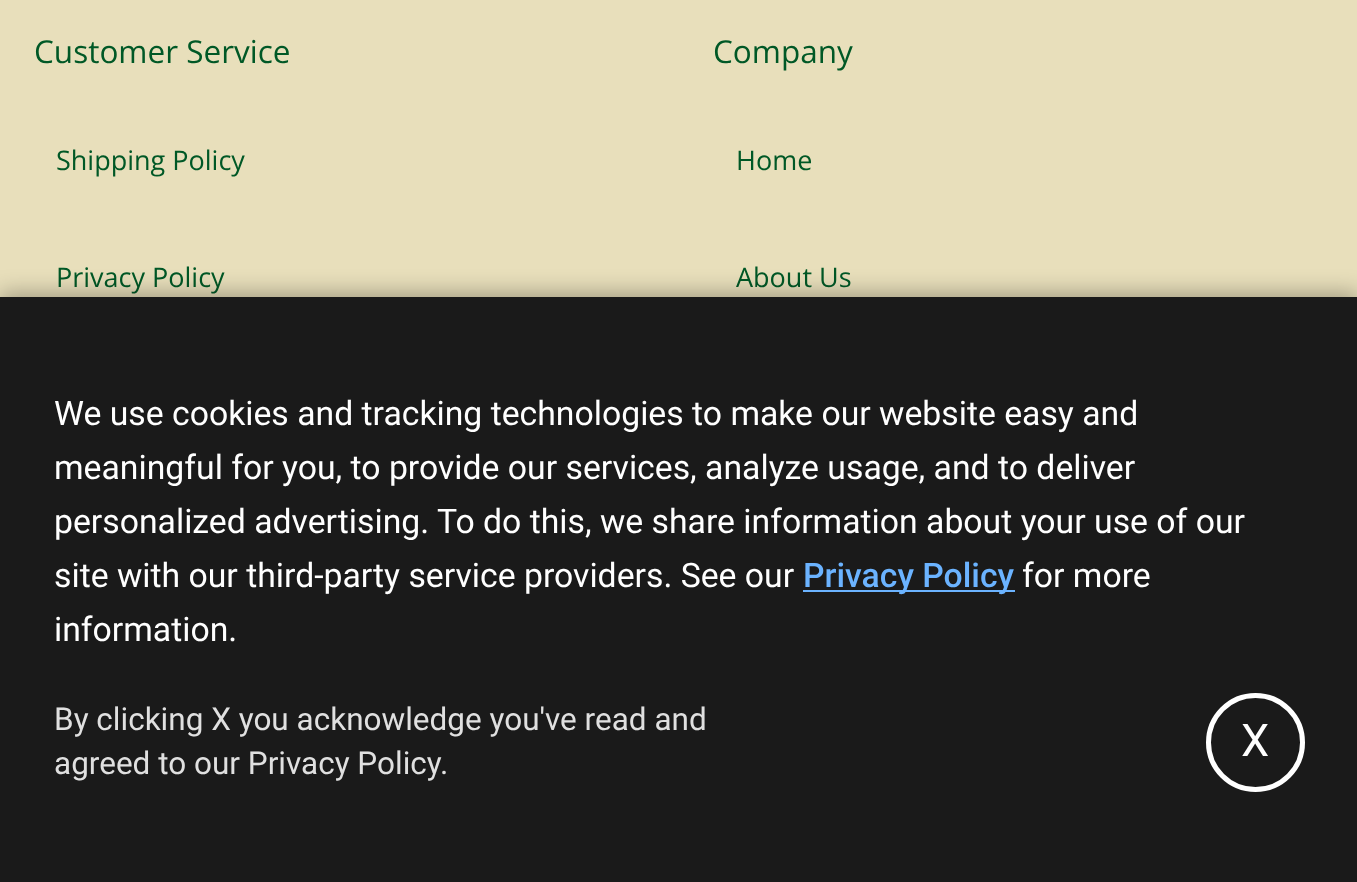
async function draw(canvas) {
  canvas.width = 1357
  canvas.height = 882
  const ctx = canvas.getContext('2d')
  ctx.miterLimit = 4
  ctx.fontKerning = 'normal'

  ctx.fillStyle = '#e8dfbb'
  ctx.fillRect(0, 0, 1357, 882)
  ctx.font = '31.5px Open Sans'
  ctx.fillStyle = '#005826'
  ctx.fillText('Customer Service', 34, 63)
  ctx.font = '27px Open Sans'
  ctx.fillText('Shipping Policy', 56, 170)
  ctx.fillText('Privacy Policy', 56, 287)
  ctx.font = '31.5px Open Sans'
  ctx.fillText('Company', 713, 63)
  ctx.font = '27px Open Sans'
  ctx.fillText('Home', 736, 170)
  ctx.fillText('About Us', 736, 287)
  ctx.fillStyle = '#0000004d'
  ctx.filter = 'blur(11px)'
  ctx.beginPath()
  ctx.rect(0, 293, 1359, 585)
  ctx.fill()
  ctx.filter = 'none'
  ctx.fillStyle = '#1a1a1a'
  ctx.fillRect(0, 297, 1357, 585)
  ctx.font = '33.75px Roboto'
  ctx.fillStyle = '#fff'
  ctx.fillText('We use cookies and tracking technologies to make our website easy and', 54, 425)
  ctx.fillText('meaningful for you, to provide our services, analyze usage, and to deliver', 54, 479)
  ctx.fillText('personalized advertising. To do this, we share information about your use of our', 54, 533)
  ctx.fillText('site with our third-party service providers. See our', 54, 587)
  ctx.fillStyle = '#6bb3ff'
  ctx.fillRect(803, 590, 212, 2)
  ctx.font = '500 33.75px Roboto'
  ctx.fillText('Privacy Policy', 803, 587)
  ctx.font = '33.75px Roboto'
  ctx.fillStyle = '#fff'
  ctx.fillText('for more', 1022, 587)
  ctx.fillText('information.', 54, 641)
  ctx.font = '31.5px Roboto'
  ctx.fillStyle = '#e0e0e0'
  ctx.fillText('By clicking X you acknowledge you\'ve read and', 54, 730)
  ctx.fillText('agreed to our Privacy Policy.', 54, 774)
  ctx.beginPath()
  ctx.arc(1255.5, 742.5, 47, 0, 2 * Math.PI)
  ctx.strokeStyle = '#fff'
  ctx.lineWidth = 5
  ctx.stroke()
  ctx.font = '45px Roboto'
  ctx.fillStyle = '#fff'
  ctx.fillText('X', 1241, 756)
}

draw(document.querySelector('canvas'))
